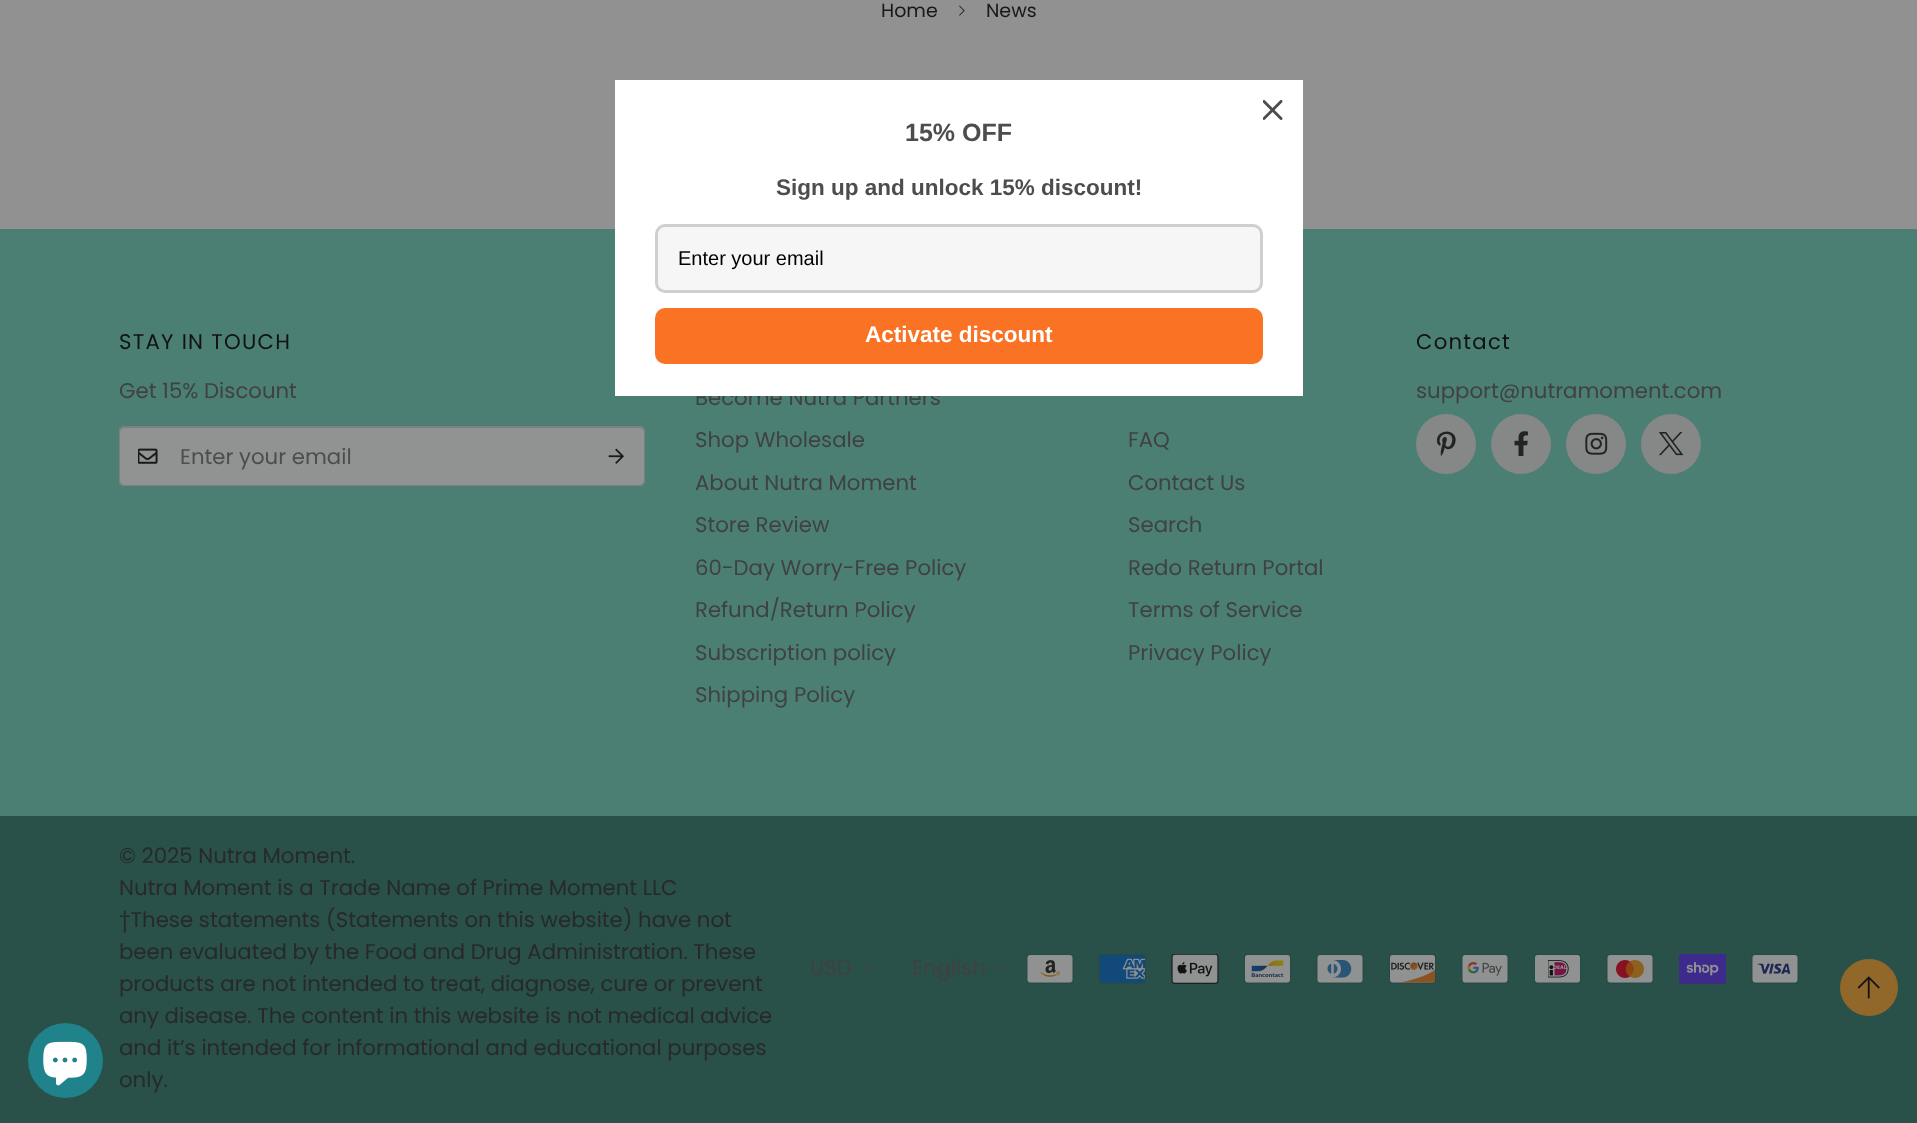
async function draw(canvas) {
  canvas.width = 1917
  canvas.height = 1123
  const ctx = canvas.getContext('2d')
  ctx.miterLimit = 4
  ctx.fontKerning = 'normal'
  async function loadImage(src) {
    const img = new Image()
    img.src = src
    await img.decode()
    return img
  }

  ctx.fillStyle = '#909190'
  ctx.fillRect(0, 0, 1917, 1123)
  ctx.font = '19px Poppins'
  ctx.fillStyle = '#181919'
  ctx.fillText('Home', 881, 17)
  ctx.drawImage(await loadImage('image0.png'), 959, 5, 6, 11)
  ctx.fillText('News', 986, 17)
  ctx.fillStyle = '#4b7f74'
  ctx.fillRect(0, 229, 1917, 587)
  ctx.font = '21.25px Poppins'
  ctx.fillStyle = '#404141'
  ctx.fillText('Become Nutra Partners', 695, 405)
  ctx.fillStyle = '#fff'
  ctx.fillRect(615, 80, 688, 316)
  ctx.drawImage(await loadImage('image1.png'), 1263, 100, 20, 20)
  ctx.font = 'bold 25px Liberation Sans'
  ctx.fillStyle = '#4c4d4d'
  ctx.fillText('15% OFF', 905, 141)
  ctx.font = 'bold 22.5px Liberation Sans'
  ctx.fillText('Sign up and unlock 15% discount!', 776, 195)
  ctx.fillStyle = '#f6f6f6'
  ctx.beginPath()
  ctx.roundRect(656.5, 225.5, 605, 66, 8.5)
  ctx.fill()
  ctx.strokeStyle = '#cfcfcf'
  ctx.lineWidth = 3
  ctx.stroke()
  ctx.font = '20px Liberation Sans'
  ctx.fillStyle = '#000'
  ctx.fillText('Enter your email', 678, 265)
  ctx.fillStyle = '#fa7223'
  ctx.beginPath()
  ctx.roundRect(655, 308, 608, 56, 10)
  ctx.fill()
  ctx.font = 'bold 22.5px Liberation Sans'
  ctx.fillStyle = '#fff'
  ctx.fillText('Activate discount', 865, 342)
  ctx.letterSpacing = '1.25px'
  ctx.font = '21.25px Poppins'
  ctx.fillStyle = '#111212'
  ctx.fillText('STAY IN TOUCH', 119, 349)
  ctx.letterSpacing = '0px'
  ctx.fillStyle = '#404141'
  ctx.fillText('Get 15% Discount', 119, 398)
  ctx.fillStyle = '#919292'
  ctx.beginPath()
  ctx.roundRect(120, 428, 469, 57, [4, 0, 0, 4])
  ctx.fill()
  ctx.fillStyle = '#7e7f7f'
  ctx.beginPath()
  ctx.moveTo(124, 426)
  ctx.lineTo(589, 426)
  ctx.lineTo(589, 486)
  ctx.lineTo(124, 486)
  ctx.bezierCurveTo(121, 486, 119, 484, 119, 481)
  ctx.lineTo(119, 431)
  ctx.bezierCurveTo(119, 428, 121, 426, 124, 426)
  ctx.closePath()
  ctx.moveTo(124, 428)
  ctx.lineTo(589, 428)
  ctx.lineTo(589, 485)
  ctx.lineTo(124, 485)
  ctx.bezierCurveTo(122, 485, 120, 483, 120, 481)
  ctx.lineTo(120, 431)
  ctx.bezierCurveTo(120, 429, 122, 428, 124, 428)
  ctx.closePath()
  ctx.fill('evenodd')
  ctx.drawImage(await loadImage('image2.png'), 138, 448, 20, 16)
  ctx.fillStyle = '#4c4d4d'
  ctx.fillText('Enter your email', 180, 464)
  ctx.fillStyle = '#919292'
  ctx.beginPath()
  ctx.roundRect(589, 428, 55, 57, [0, 4, 4, 0])
  ctx.fill()
  ctx.fillStyle = '#7e7f7f'
  ctx.beginPath()
  ctx.moveTo(589, 426)
  ctx.lineTo(640, 426)
  ctx.bezierCurveTo(643, 426, 645, 428, 645, 431)
  ctx.lineTo(645, 481)
  ctx.bezierCurveTo(645, 484, 643, 486, 640, 486)
  ctx.lineTo(589, 486)
  ctx.closePath()
  ctx.moveTo(589, 428)
  ctx.lineTo(640, 428)
  ctx.bezierCurveTo(642, 428, 644, 429, 644, 431)
  ctx.lineTo(644, 481)
  ctx.bezierCurveTo(644, 483, 642, 485, 640, 485)
  ctx.lineTo(589, 485)
  ctx.closePath()
  ctx.fill('evenodd')
  ctx.drawImage(await loadImage('image3.png'), 608, 448, 16, 16)
  ctx.letterSpacing = '1.25px'
  ctx.fillStyle = '#111212'
  ctx.fillText('Contact', 1416, 349)
  ctx.letterSpacing = '0px'
  ctx.fillStyle = '#404141'
  ctx.fillText('support@nutramoment.com', 1416, 398)
  ctx.fillStyle = '#868787'
  ctx.beginPath()
  ctx.arc(1446, 444, 30, 0, 2 * Math.PI)
  ctx.fill()
  ctx.drawImage(await loadImage('image4.png'), 1436, 431, 20, 25)
  ctx.beginPath()
  ctx.arc(1521, 444, 30, 0, 2 * Math.PI)
  ctx.fill()
  ctx.drawImage(await loadImage('image5.png'), 1514, 431, 14, 25)
  ctx.beginPath()
  ctx.arc(1596, 444, 30, 0, 2 * Math.PI)
  ctx.fill()
  ctx.drawImage(await loadImage('image6.png'), 1585, 432, 23, 23)
  ctx.beginPath()
  ctx.arc(1671, 444, 30, 0, 2 * Math.PI)
  ctx.fill()
  ctx.drawImage(await loadImage('image7.png'), 1659, 432, 25, 24)
  ctx.fillStyle = '#404141'
  ctx.fillText('Shop Wholesale', 695, 447)
  ctx.fillText('About Nutra Moment', 695, 490)
  ctx.fillText('Store Review', 695, 532)
  ctx.fillText('60-Day Worry-Free Policy', 695, 575)
  ctx.fillText('Refund/Return Policy', 695, 617)
  ctx.fillText('Subscription policy', 695, 660)
  ctx.fillText('Shipping Policy', 695, 702)
  ctx.fillText('FAQ', 1128, 447)
  ctx.fillText('Contact Us', 1128, 490)
  ctx.fillText('Search', 1128, 532)
  ctx.fillText('Redo Return Portal', 1128, 575)
  ctx.fillText('Terms of Service', 1128, 617)
  ctx.fillText('Privacy Policy', 1128, 660)
  ctx.fillStyle = '#295049'
  ctx.fillRect(0, 816, 1917, 307)
  ctx.fillStyle = '#282929'
  ctx.fillText('© 2025 Nutra Moment.', 119, 863)
  ctx.fillText('Nutra Moment is a Trade Name of Prime Moment LLC', 119, 895)
  ctx.fillText('†These statements (Statements on this website) have not', 119, 927)
  ctx.fillText('been evaluated by the Food and Drug Administration. These', 119, 959)
  ctx.fillText('products are not intended to treat, diagnose, cure or prevent', 119, 991)
  ctx.fillText('any disease. The content in this website is not medical advice', 119, 1023)
  ctx.fillText('and it’s intended for informational and educational purposes', 119, 1055)
  ctx.fillText('only.', 119, 1087)
  ctx.fillStyle = '#404141'
  ctx.fillText('USD', 810, 975)
  ctx.drawImage(await loadImage('image8.png'), 863, 966, 9, 6)
  ctx.fillText('English', 912, 975)
  ctx.drawImage(await loadImage('image9.png'), 997, 966, 9, 6)
  ctx.drawImage(await loadImage('image10.png'), 1026, 954, 48, 30)
  ctx.drawImage(await loadImage('image11.png'), 1099, 954, 47, 30)
  ctx.drawImage(await loadImage('image12.png'), 1171, 954, 48, 30)
  ctx.drawImage(await loadImage('image13.png'), 1244, 954, 47, 30)
  ctx.drawImage(await loadImage('image14.png'), 1316, 954, 48, 30)
  ctx.drawImage(await loadImage('image15.png'), 1389, 954, 47, 30)
  ctx.drawImage(await loadImage('image16.png'), 1461, 954, 48, 30)
  ctx.drawImage(await loadImage('image17.png'), 1534, 954, 47, 30)
  ctx.drawImage(await loadImage('image18.png'), 1606, 954, 48, 30)
  ctx.drawImage(await loadImage('image19.png'), 1679, 954, 47, 30)
  ctx.drawImage(await loadImage('image20.png'), 1751, 954, 48, 30)
  ctx.font = '600 19px Poppins'
  ctx.fillStyle = '#4a7b70'
  ctx.fillText('\'', 856, 628)
  ctx.fillStyle = '#916829'
  ctx.beginPath()
  ctx.roundRect(1840.5, 959.5, 57, 56, 28)
  ctx.fill()
  ctx.strokeStyle = '#916829'
  ctx.lineWidth = 1
  ctx.stroke()
  ctx.drawImage(await loadImage('image21.png'), 1857, 976, 23, 23)
  ctx.fillStyle = '#20828b'
  ctx.beginPath()
  ctx.arc(65.5, 1060.5, 37.5, 0, 2 * Math.PI)
  ctx.fill()
  ctx.drawImage(await loadImage('image22.png'), 43, 1041, 44, 45)
}

draw(document.querySelector('canvas'))
